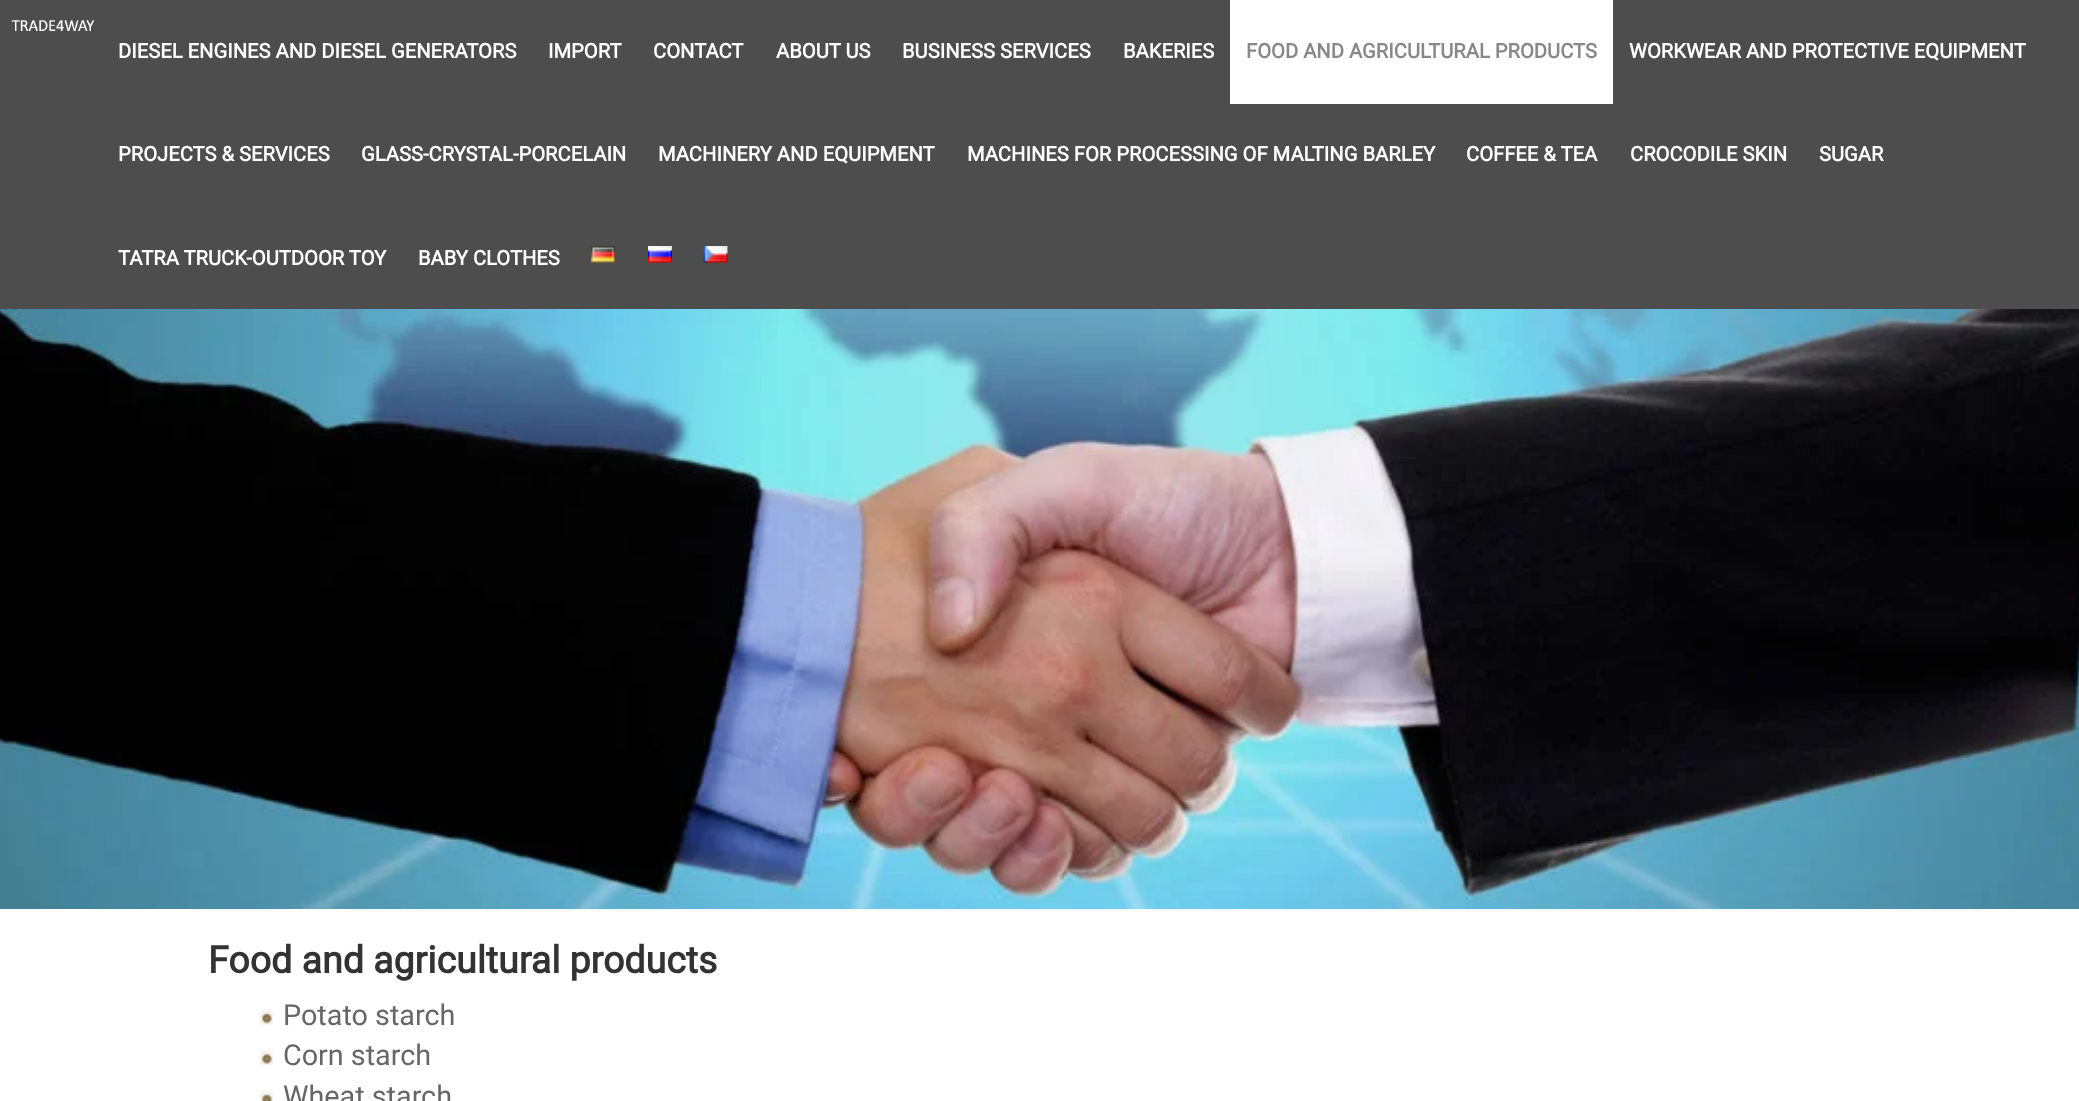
async function draw(canvas) {
  canvas.width = 2079
  canvas.height = 1101
  const ctx = canvas.getContext('2d')
  ctx.miterLimit = 4
  ctx.fontKerning = 'normal'
  async function loadImage(src) {
    const img = new Image()
    img.src = src
    await img.decode()
    return img
  }

  ctx.fillStyle = '#fff'
  ctx.fillRect(0, 0, 2079, 1101)
  ctx.fillStyle = '#4d4d4d'
  ctx.fillRect(0, 0, 2079, 309)
  ctx.drawImage(await loadImage('image0.png'), 11, 20, 84, 11)
  ctx.font = 'bold 20.2px Roboto'
  ctx.fillStyle = '#fff'
  ctx.fillText('DIESEL ENGINES AND DIESEL GENERATORS', 118, 58)
  ctx.fillText('IMPORT', 548, 58)
  ctx.fillText('CONTACT', 653, 58)
  ctx.fillText('ABOUT US', 776, 58)
  ctx.fillText('BUSINESS SERVICES', 902, 58)
  ctx.fillText('BAKERIES', 1123, 58)
  ctx.fillRect(1230, 0, 383, 104)
  ctx.fillStyle = '#888'
  ctx.fillText('FOOD AND AGRICULTURAL PRODUCTS', 1246, 58)
  ctx.fillStyle = '#fff'
  ctx.fillText('WORKWEAR AND PROTECTIVE EQUIPMENT', 1629, 58)
  ctx.fillText('PROJECTS & SERVICES', 118, 161)
  ctx.fillText('GLASS-CRYSTAL-PORCELAIN', 361, 161)
  ctx.fillText('MACHINERY AND EQUIPMENT', 658, 161)
  ctx.fillText('MACHINES FOR PROCESSING OF MALTING BARLEY', 967, 161)
  ctx.fillText('COFFEE & TEA', 1466, 161)
  ctx.fillText('CROCODILE SKIN', 1630, 161)
  ctx.fillText('SUGAR', 1819, 161)
  ctx.fillText('TATRA TRUCK-OUTDOOR TOY', 118, 265)
  ctx.fillText('BABY CLOTHES', 418, 265)
  ctx.drawImage(await loadImage('image1.png'), 591, 246, 24, 17)
  ctx.drawImage(await loadImage('image2.png'), 648, 246, 24, 17)
  ctx.drawImage(await loadImage('image3.png'), 703, 246, 25, 17)
  ctx.drawImage(await loadImage('image4.png'), 0, 309, 2079, 600)
  ctx.font = 'bold 37.5px Roboto'
  ctx.fillStyle = '#333'
  ctx.fillText('Food and agricultural products', 208, 973)
  ctx.drawImage(await loadImage('image5.png'), 259, 1008, 14, 17)
  ctx.font = '28.75px Roboto'
  ctx.fillStyle = '#666'
  ctx.fillText('Potato starch', 283, 1025)
  ctx.drawImage(await loadImage('image6.png'), 259, 1048, 14, 17)
  ctx.fillText('Corn starch', 283, 1065)
  ctx.drawImage(await loadImage('image7.png'), 259, 1089, 14, 12)
  ctx.fillText('Wheat starch', 283, 1106)
}

draw(document.querySelector('canvas'))
